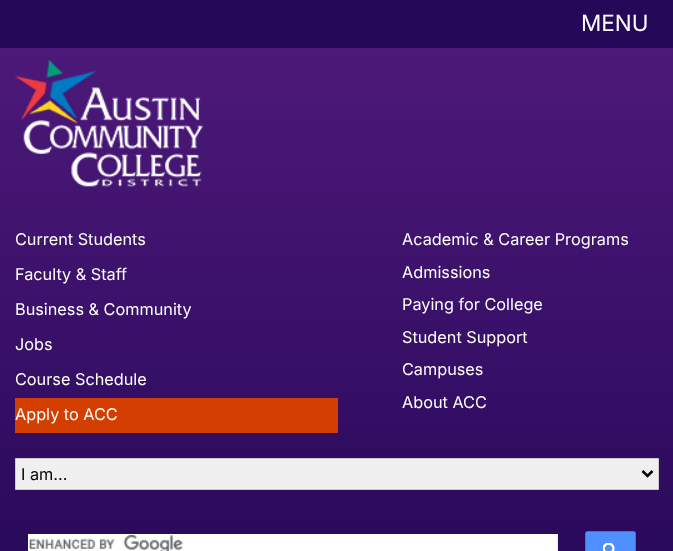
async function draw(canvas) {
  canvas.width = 673
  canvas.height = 551
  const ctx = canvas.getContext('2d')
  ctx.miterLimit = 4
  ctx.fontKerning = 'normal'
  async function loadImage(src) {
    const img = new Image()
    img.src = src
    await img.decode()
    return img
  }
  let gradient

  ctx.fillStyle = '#260859'
  ctx.fillRect(0, 0, 673, 551)
  ctx.font = '22.5px Inter'
  ctx.fillStyle = '#fff'
  ctx.fillText('MENU', 581, 31)
  gradient = ctx.createLinearGradient(337, 47, 337, 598)
  gradient.addColorStop(0, '#4d1979')
  gradient.addColorStop(1, '#260859')
  ctx.fillStyle = gradient
  ctx.fillRect(0, 48, 673, 503)
  ctx.drawImage(await loadImage('image0.png'), 15, 60, 188, 127)
  ctx.font = '16.25px Inter'
  ctx.fillStyle = '#fff'
  ctx.fillText('Current Students', 15, 245)
  ctx.fillText('Faculty & Staff', 15, 280)
  ctx.fillText('Business & Community', 15, 315)
  ctx.fillText('Jobs', 15, 350)
  ctx.fillText('Course Schedule', 15, 385)
  ctx.fillStyle = '#d23f00'
  ctx.fillRect(15, 398, 323, 35)
  ctx.fillStyle = '#fff'
  ctx.fillText('Apply to ACC', 15, 420)
  ctx.fillText('Academic & Career Programs', 402, 245)
  ctx.fillText('Admissions', 402, 278)
  ctx.fillText('Paying for College', 402, 310)
  ctx.fillText('Student Support', 402, 343)
  ctx.fillText('Campuses', 402, 375)
  ctx.fillText('About ACC', 402, 408)
  ctx.fillStyle = '#efefef'
  ctx.beginPath()
  ctx.rect(15.5, 458.5, 643, 31)
  ctx.fill()
  ctx.strokeStyle = '#ccc'
  ctx.stroke()
  ctx.beginPath()
  ctx.moveTo(642.5, 471)
  ctx.lineTo(647.5, 476)
  ctx.lineTo(652.5, 471)
  ctx.strokeStyle = '#000'
  ctx.lineWidth = 2.5
  ctx.stroke()
  ctx.fillStyle = '#000'
  ctx.fillText('I am...', 21, 480)
  ctx.fillStyle = '#eef1f5'
  ctx.fillRect(557, 535, 1, 16)
  ctx.fillStyle = '#fff'
  ctx.fillRect(28, 534, 530, 1)
  ctx.fillRect(556, 534, 1, 17)
  ctx.fillRect(28, 534, 1, 17)
  ctx.fillRect(29, 535, 527, 16)
  ctx.drawImage(await loadImage('image1.png'), 29, 535, 154, 16)
  ctx.fillStyle = '#4d90fe'
  ctx.beginPath()
  ctx.roundRect(585.5, 531.5, 50, 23, 2)
  ctx.fill()
  ctx.strokeStyle = '#3079ed'
  ctx.lineWidth = 1
  ctx.stroke()
  ctx.drawImage(await loadImage('image2.png'), 603, 543, 12, 8)
}

draw(document.querySelector('canvas'))
